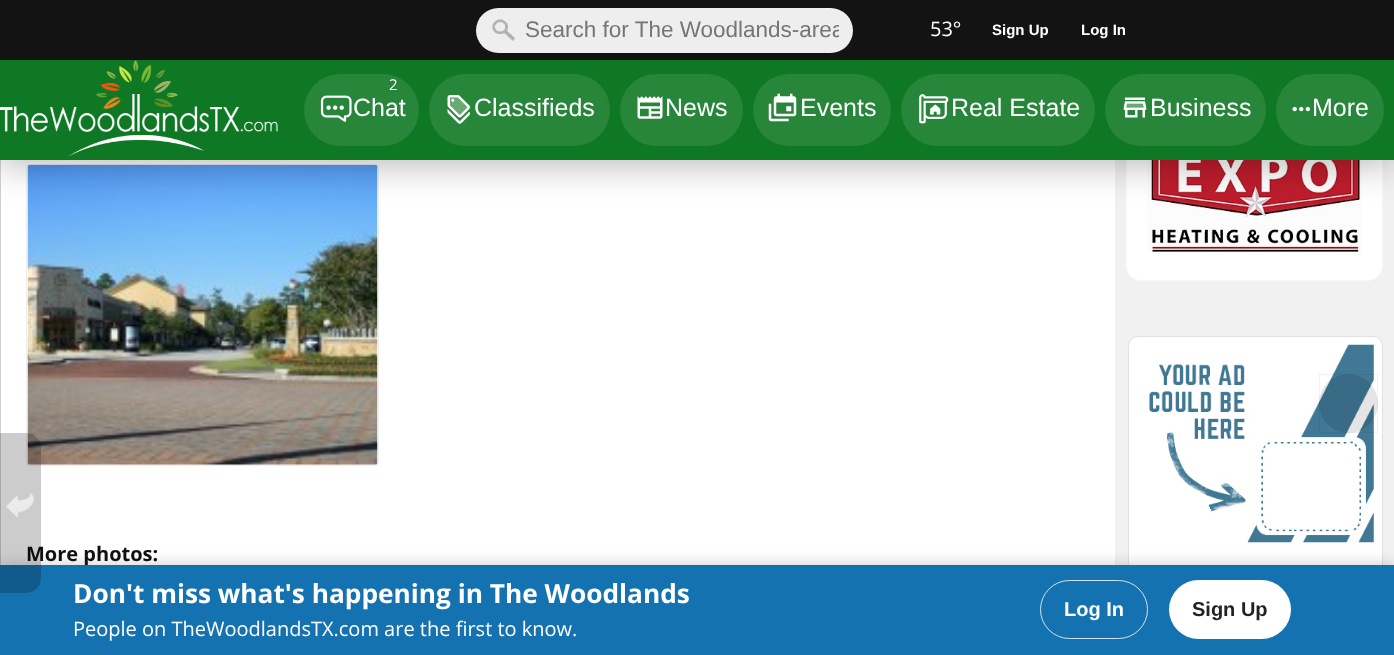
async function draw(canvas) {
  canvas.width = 1394
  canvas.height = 655
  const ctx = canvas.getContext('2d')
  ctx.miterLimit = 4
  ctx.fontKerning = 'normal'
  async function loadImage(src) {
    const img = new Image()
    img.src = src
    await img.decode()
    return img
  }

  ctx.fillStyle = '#fff'
  ctx.fillRect(0, 0, 1394, 655)
  ctx.fillStyle = '#d1d1d1'
  ctx.beginPath()
  ctx.moveTo(0, -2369)
  ctx.lineTo(0, 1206)
  ctx.lineTo(1, 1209)
  ctx.lineTo(2, 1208)
  ctx.lineTo(1, 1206)
  ctx.lineTo(1, -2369)
  ctx.closePath()
  ctx.fill()
  ctx.beginPath()
  ctx.roundRect(26.5, 164.5, 352, 301, 3.5)
  ctx.strokeStyle = '#eee'
  ctx.stroke()
  ctx.drawImage(await loadImage('image10.png'), 27, 164, 351, 301)
  ctx.fillStyle = '#f1f1f1'
  ctx.fillRect(1115, 160, 279, 405)
  ctx.fillStyle = '#fff'
  ctx.beginPath()
  ctx.roundRect(1126.5, 114.5, 256, 166, 14.5)
  ctx.fill()
  ctx.strokeStyle = '#f8f8f8'
  ctx.stroke()
  ctx.drawImage(await loadImage('image11.png'), 1147, 160, 215, 93)
  ctx.fillStyle = '#0000004d'
  ctx.filter = 'blur(19px)'
  ctx.beginPath()
  ctx.rect(-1, 0, 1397, 163)
  ctx.fill()
  ctx.filter = 'none'
  ctx.fillStyle = '#131313'
  ctx.fillRect(0, 0, 1394, 60)
  ctx.fillStyle = '#eee'
  ctx.beginPath()
  ctx.roundRect(476, 8, 377, 45, 22.5)
  ctx.fill()
  ctx.drawImage(await loadImage('image0.png'), 492, 19, 23, 22)
  ctx.save()
  ctx.beginPath()
  ctx.rect(525, 18, 314, 26)
  ctx.clip()
  ctx.font = '22.5px Liberation Sans'
  ctx.fillStyle = '#757575'
  ctx.fillText('Search for The Woodlands-area', 525, 37)
  ctx.restore()
  ctx.font = '20px Open Sans'
  ctx.fillStyle = '#fff'
  ctx.fillText('53°', 930, 36)
  ctx.font = 'bold 15px Liberation Sans'
  ctx.fillText('Sign Up', 992, 35)
  ctx.fillText('Log In', 1081, 35)
  ctx.fillStyle = '#0f7824'
  ctx.fillRect(0, 60, 1394, 100)
  ctx.drawImage(await loadImage('image1.png'), 0, 60, 278, 97)
  ctx.fillStyle = '#27863a'
  ctx.beginPath()
  ctx.roundRect(304, 74, 115, 72, 36)
  ctx.fill()
  ctx.font = '15px Open Sans'
  ctx.fillStyle = '#fff'
  ctx.fillText('2', 389, 90)
  ctx.drawImage(await loadImage('image2.png'), 320, 95, 32, 27)
  ctx.font = '25px Liberation Sans'
  ctx.fillText('Chat', 353, 116)
  ctx.fillStyle = '#27863a'
  ctx.beginPath()
  ctx.roundRect(429, 74, 181, 72, 36)
  ctx.fill()
  ctx.drawImage(await loadImage('image3.png'), 447, 95, 23, 29)
  ctx.fillStyle = '#fff'
  ctx.fillText('Classifieds', 474, 116)
  ctx.fillStyle = '#27863a'
  ctx.beginPath()
  ctx.roundRect(620, 74, 123, 72, 36)
  ctx.fill()
  ctx.drawImage(await loadImage('image4.png'), 637, 96, 26, 23)
  ctx.fillStyle = '#fff'
  ctx.fillText('News', 665, 116)
  ctx.fillStyle = '#27863a'
  ctx.beginPath()
  ctx.roundRect(753, 74, 138, 72, 36)
  ctx.fill()
  ctx.drawImage(await loadImage('image5.png'), 768, 93, 29, 29)
  ctx.fillStyle = '#fff'
  ctx.fillText('Events', 800, 116)
  ctx.fillStyle = '#27863a'
  ctx.beginPath()
  ctx.roundRect(901, 74, 194, 72, 36)
  ctx.fill()
  ctx.drawImage(await loadImage('image6.png'), 919, 94, 30, 30)
  ctx.fillStyle = '#fff'
  ctx.fillText('Real Estate', 951, 116)
  ctx.fillStyle = '#27863a'
  ctx.beginPath()
  ctx.roundRect(1105, 74, 161, 72, 36)
  ctx.fill()
  ctx.drawImage(await loadImage('image7.png'), 1123, 97, 24, 21)
  ctx.fillStyle = '#fff'
  ctx.fillText('Business', 1150, 116)
  ctx.fillStyle = '#27863a'
  ctx.beginPath()
  ctx.roundRect(1276, 74, 108, 72, 36)
  ctx.fill()
  ctx.drawImage(await loadImage('image8.png'), 1292, 106, 18, 6)
  ctx.fillStyle = '#fff'
  ctx.fillText('More', 1312, 116)
  ctx.beginPath()
  ctx.roundRect(1128.5, 336.5, 254, 261, 9.5)
  ctx.fill()
  ctx.strokeStyle = '#e1e1e1'
  ctx.stroke()
  ctx.drawImage(await loadImage('image12.png'), 1149, 344, 225, 199)
  ctx.fillStyle = '#0000001a'
  ctx.beginPath()
  ctx.arc(1348.5, 403.5, 29.5, 0, 2 * Math.PI)
  ctx.fill()
  ctx.strokeStyle = '#0000000d'
  ctx.strokeRect(1319.5, 374.5, 58, 58)
  ctx.font = 'bold 20px Open Sans'
  ctx.fillStyle = '#111'
  ctx.fillText('More photos:', 26, 561)
  ctx.fillStyle = '#00000033'
  ctx.filter = 'blur(7.5px)'
  ctx.beginPath()
  ctx.rect(0, 565, 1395, 90)
  ctx.fill()
  ctx.filter = 'none'
  ctx.fillStyle = '#1572b0'
  ctx.fillRect(0, 565, 1394, 90)
  ctx.fillStyle = '#00000033'
  ctx.beginPath()
  ctx.roundRect(0, 433, 41, 160, [0, 15, 15, 0])
  ctx.fill()
  ctx.drawImage(await loadImage('image9.png'), 6, 493, 28, 25)
  ctx.font = 'bold 26.25px Open Sans'
  ctx.fillStyle = '#fff'
  ctx.fillText('Don\'t miss what\'s happening in The Woodlands', 73, 603)
  ctx.beginPath()
  ctx.roundRect(1040.5, 580.5, 107, 58, 29)
  ctx.strokeStyle = '#d0e3ef'
  ctx.stroke()
  ctx.font = 'bold 20px Liberation Sans'
  ctx.fillText('Log In', 1064, 616)
  ctx.beginPath()
  ctx.roundRect(1169, 580, 122, 59, 29.5)
  ctx.fill()
  ctx.fillStyle = '#222'
  ctx.fillText('Sign Up', 1192, 616)
  ctx.font = '20px Open Sans'
  ctx.fillStyle = '#fff'
  ctx.fillText('People on TheWoodlandsTX.com are the first to know.', 73, 636)
}

draw(document.querySelector('canvas'))
